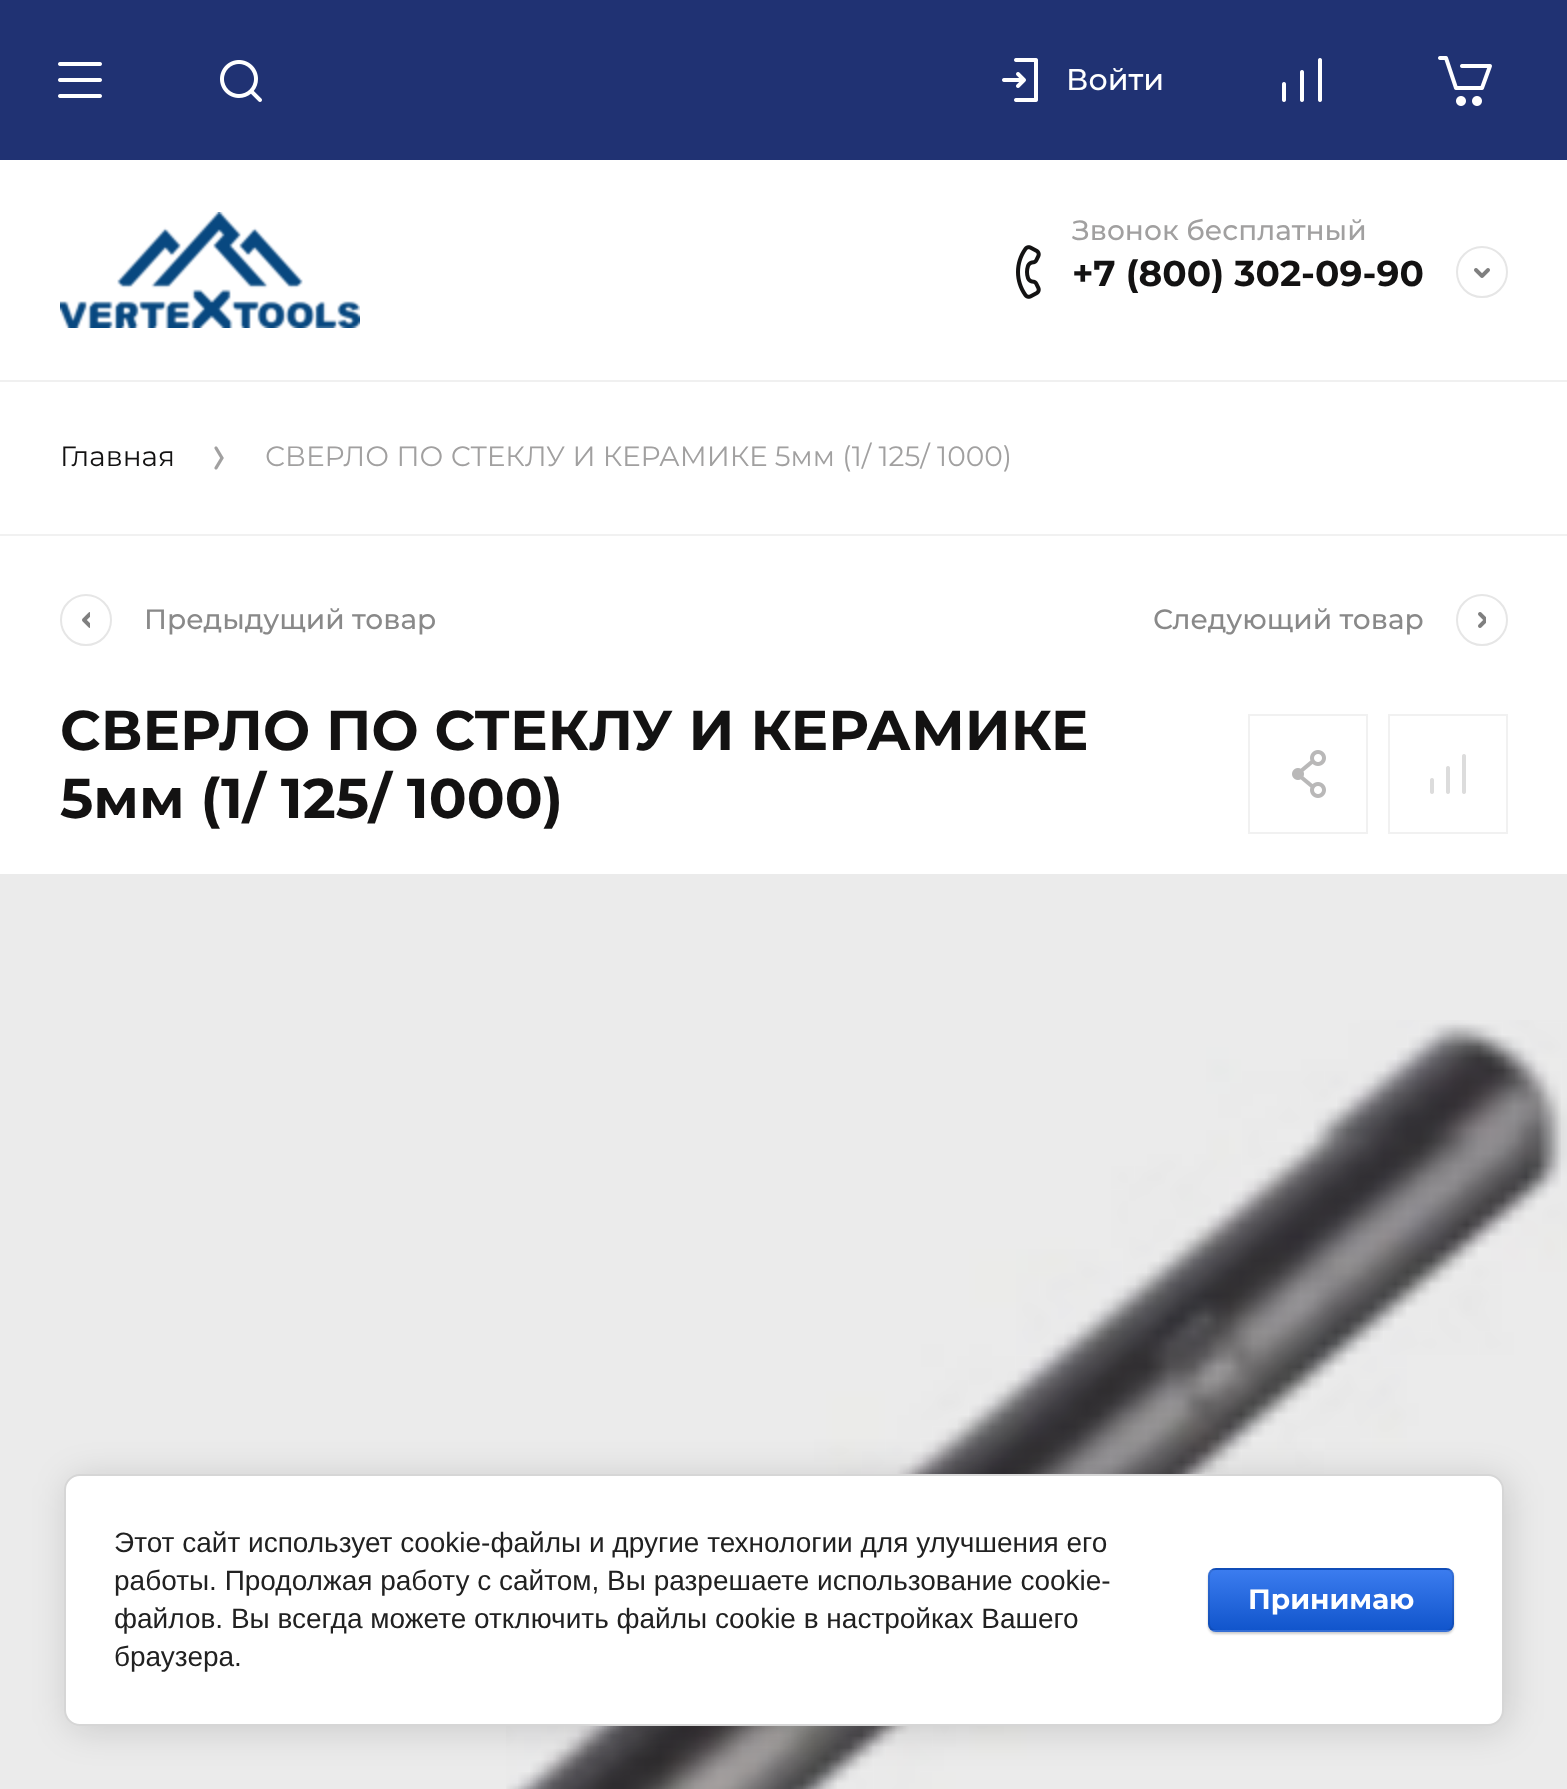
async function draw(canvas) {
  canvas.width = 1567
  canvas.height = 1789
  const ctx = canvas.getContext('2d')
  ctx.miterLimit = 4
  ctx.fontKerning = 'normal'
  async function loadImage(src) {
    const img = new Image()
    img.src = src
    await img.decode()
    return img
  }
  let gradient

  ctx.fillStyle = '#fff'
  ctx.fillRect(0, 0, 1567, 1789)
  ctx.fillStyle = '#ebebeb'
  ctx.fillRect(0, 874, 1567, 915)
  ctx.fillStyle = '#203273'
  ctx.fillRect(0, 0, 1567, 160)
  ctx.drawImage(await loadImage('image0.png'), 58, 62, 44, 36)
  ctx.drawImage(await loadImage('image1.png'), 220, 60, 42, 42)
  ctx.drawImage(await loadImage('image2.png'), 1002, 58, 36, 44)
  ctx.font = '500 30px Montserrat'
  ctx.fillStyle = '#fff'
  ctx.fillText('Войти', 1066, 90)
  ctx.drawImage(await loadImage('image3.png'), 1282, 58, 40, 44)
  ctx.drawImage(await loadImage('image4.png'), 1438, 56, 54, 50)
  ctx.fillStyle = '#f0f0f0'
  ctx.fillRect(0, 380, 1567, 2)
  ctx.drawImage(await loadImage('image5.png'), 60, 212, 300, 116)
  ctx.drawImage(await loadImage('image6.png'), 1016, 245, 25, 54)
  ctx.font = '500 28px Montserrat'
  ctx.fillStyle = '#a1a0a0'
  ctx.fillText('Звонок бесплатный', 1072, 240)
  ctx.font = 'bold 36px Montserrat'
  ctx.fillStyle = '#131212'
  ctx.fillText('+7 (800) 302-09-90', 1072, 286)
  ctx.drawImage(await loadImage('image7.png'), 1474, 268, 16, 10)
  ctx.beginPath()
  ctx.arc(1482, 272, 25, 0, 2 * Math.PI)
  ctx.strokeStyle = '#e6e6e6'
  ctx.lineWidth = 2
  ctx.stroke()
  ctx.fillStyle = '#f1f1f1'
  ctx.fillRect(0, 534, 1567, 2)
  ctx.font = '28px Montserrat'
  ctx.fillStyle = '#131212'
  ctx.fillText('Главная', 60, 466)
  ctx.drawImage(await loadImage('image8.png'), 214, 446, 10, 24)
  ctx.fillStyle = '#a1a0a0'
  ctx.fillText('СВЕРЛО ПО СТЕКЛУ И КЕРАМИКЕ 5мм (1/ 125/ 1000)', 265, 466)
  ctx.drawImage(await loadImage('image9.png'), 82, 612, 8, 16)
  ctx.beginPath()
  ctx.arc(86, 620, 25, 0, 2 * Math.PI)
  ctx.stroke()
  ctx.font = '500 28px Montserrat'
  ctx.fillStyle = '#898989'
  ctx.fillText('Предыдущий товар', 144, 629)
  ctx.fillText('Следующий товар', 1153, 629)
  ctx.drawImage(await loadImage('image10.png'), 1478, 612, 8, 16)
  ctx.beginPath()
  ctx.arc(1482, 620, 25, 0, 2 * Math.PI)
  ctx.stroke()
  ctx.font = 'bold 56px Montserrat'
  ctx.fillStyle = '#131212'
  ctx.fillText('СВЕРЛО ПО СТЕКЛУ И КЕРАМИКЕ', 60, 750)
  ctx.fillText('5мм (1/ 125/ 1000)', 60, 818)
  ctx.drawImage(await loadImage('image11.png'), 1292, 750, 34, 48)
  ctx.strokeStyle = '#f1f1f1'
  ctx.strokeRect(1249, 715, 118, 118)
  ctx.strokeRect(1389, 715, 118, 118)
  ctx.drawImage(await loadImage('image12.png'), 1430, 754, 36, 40)
  ctx.drawImage(await loadImage('image13.png'), 506, 1020, 1061, 769)
  ctx.fillStyle = '#00000024'
  ctx.filter = 'blur(18px)'
  ctx.beginPath()
  ctx.roundRect(68, 1478, 1440, 252, 16)
  ctx.fill()
  ctx.filter = 'none'
  ctx.fillStyle = '#fff'
  ctx.beginPath()
  ctx.roundRect(65, 1475, 1438, 250, 15)
  ctx.fill()
  ctx.strokeStyle = '#d6d6d6'
  ctx.stroke()
  ctx.font = '28px Liberation Sans'
  ctx.fillStyle = '#212121'
  ctx.fillText('Этот сайт использует cookie-файлы и другие технологии для улучшения его', 114, 1552)
  ctx.fillText('работы. Продолжая работу с сайтом, Вы разрешаете использование cookie-', 114, 1590)
  ctx.fillText('файлов. Вы всегда можете отключить файлы cookie в настройках Вашего', 114, 1628)
  ctx.fillText('браузера.', 114, 1666)
  ctx.fillStyle = '#00000033'
  ctx.filter = 'blur(1px)'
  ctx.beginPath()
  ctx.roundRect(1208, 1570, 246, 64, 8)
  ctx.fill()
  ctx.filter = 'none'
  ctx.save()
  ctx.beginPath()
  ctx.roundRect(1208, 1568, 246, 64, 8)
  ctx.clip()
  gradient = ctx.createLinearGradient(1331, 1510, 1331, 1570)
  gradient.addColorStop(0, '#3b7cef')
  gradient.addColorStop(1, '#15c')
  ctx.fillStyle = gradient
  ctx.fillRect(1208, 1568, 246, 2)
  gradient = ctx.createLinearGradient(1331, 1570, 1331, 1630)
  gradient.addColorStop(0, '#3b7cef')
  gradient.addColorStop(1, '#15c')
  ctx.fillStyle = gradient
  ctx.fillRect(1208, 1570, 246, 60)
  gradient = ctx.createLinearGradient(1331, 1630, 1331, 1690)
  gradient.addColorStop(0, '#3b7cef')
  gradient.addColorStop(1, '#15c')
  ctx.fillStyle = gradient
  ctx.fillRect(1208, 1630, 246, 2)
  ctx.restore()
  ctx.beginPath()
  ctx.roundRect(1209, 1569, 244, 62, 7)
  ctx.strokeStyle = '#0000001a'
  ctx.stroke()
  ctx.font = 'bold 28px Montserrat'
  ctx.fillStyle = '#fff'
  ctx.fillText('Принимаю', 1248, 1609)
}

draw(document.querySelector('canvas'))
